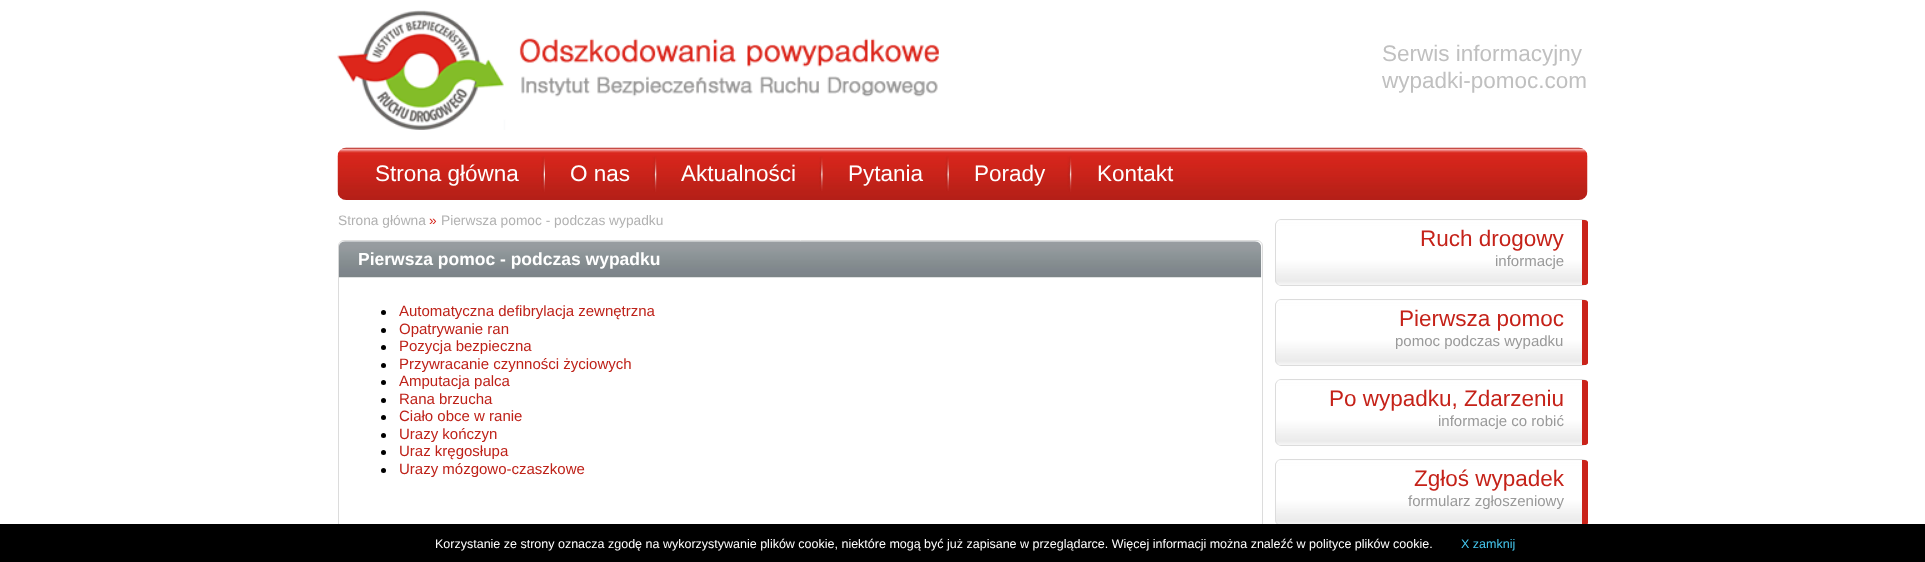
async function draw(canvas) {
  canvas.width = 1925
  canvas.height = 562
  const ctx = canvas.getContext('2d')
  ctx.miterLimit = 4
  ctx.fontKerning = 'normal'
  async function loadImage(src) {
    const img = new Image()
    img.src = src
    await img.decode()
    return img
  }

  ctx.fillStyle = '#fff'
  ctx.fillRect(0, 0, 1925, 562)
  ctx.drawImage(await loadImage('image0.png'), 337, 10, 602, 120)
  ctx.font = '22.5px Liberation Sans'
  ctx.fillStyle = '#c0c0c0'
  ctx.fillText('Serwis informacyjny', 1382, 61)
  ctx.fillText('wypadki-pomoc.com', 1382, 88)
  ctx.drawImage(await loadImage('image1.png'), 337, 147, 1251, 53)
  ctx.drawImage(await loadImage('image2.png'), 541, 156, 4, 36)
  ctx.fillStyle = '#fff'
  ctx.fillText('Strona główna', 375, 181)
  ctx.drawImage(await loadImage('image3.png'), 652, 156, 5, 36)
  ctx.fillText('O nas', 570, 181)
  ctx.drawImage(await loadImage('image4.png'), 819, 156, 4, 35)
  ctx.fillText('Aktualności', 681, 181)
  ctx.drawImage(await loadImage('image5.png'), 945, 156, 4, 35)
  ctx.fillText('Pytania', 848, 181)
  ctx.drawImage(await loadImage('image3.png'), 1067, 156, 5, 36)
  ctx.fillText('Porady', 974, 181)
  ctx.fillText('Kontakt', 1097, 181)
  ctx.font = '13.75px Liberation Sans'
  ctx.fillStyle = '#b2b2b2'
  ctx.fillText('Strona główna', 338, 225)
  ctx.fillStyle = '#d6251b'
  ctx.fillText('»', 429, 225)
  ctx.fillStyle = '#b2b2b2'
  ctx.fillText('Pierwsza pomoc - podczas wypadku', 441, 225)
  ctx.beginPath()
  ctx.roundRect(338.5, 240.5, 924, 314, 5.5)
  ctx.strokeStyle = '#dcdcdc'
  ctx.stroke()
  ctx.drawImage(await loadImage('image6.png'), 338, 241, 924, 37)
  ctx.font = 'bold 17.5px Liberation Sans'
  ctx.fillStyle = '#fff'
  ctx.fillText('Pierwsza pomoc - podczas wypadku', 358, 265)
  ctx.fillStyle = '#000'
  ctx.beginPath()
  ctx.arc(383.5, 312.5, 2.5, 0, 2 * Math.PI)
  ctx.fill()
  ctx.font = '15px Liberation Sans'
  ctx.fillStyle = '#be2118'
  ctx.fillText('Automatyczna defibrylacja zewnętrzna', 399, 316)
  ctx.fillStyle = '#000'
  ctx.beginPath()
  ctx.arc(383.5, 330.5, 2.5, 0, 2 * Math.PI)
  ctx.fill()
  ctx.fillStyle = '#be2118'
  ctx.fillText('Opatrywanie ran', 399, 334)
  ctx.fillStyle = '#000'
  ctx.beginPath()
  ctx.arc(383.5, 347.5, 2.5, 0, 2 * Math.PI)
  ctx.fill()
  ctx.fillStyle = '#be2118'
  ctx.fillText('Pozycja bezpieczna', 399, 351)
  ctx.fillStyle = '#000'
  ctx.beginPath()
  ctx.arc(383.5, 365.5, 2.5, 0, 2 * Math.PI)
  ctx.fill()
  ctx.fillStyle = '#be2118'
  ctx.fillText('Przywracanie czynności życiowych', 399, 369)
  ctx.fillStyle = '#000'
  ctx.beginPath()
  ctx.arc(383.5, 382.5, 2.5, 0, 2 * Math.PI)
  ctx.fill()
  ctx.fillStyle = '#be2118'
  ctx.fillText('Amputacja palca', 399, 386)
  ctx.fillStyle = '#000'
  ctx.beginPath()
  ctx.arc(383.5, 400.5, 2.5, 0, 2 * Math.PI)
  ctx.fill()
  ctx.fillStyle = '#be2118'
  ctx.fillText('Rana brzucha', 399, 404)
  ctx.fillStyle = '#000'
  ctx.beginPath()
  ctx.arc(383.5, 417.5, 2.5, 0, 2 * Math.PI)
  ctx.fill()
  ctx.fillStyle = '#be2118'
  ctx.fillText('Ciało obce w ranie', 399, 421)
  ctx.fillStyle = '#000'
  ctx.beginPath()
  ctx.arc(383.5, 435.5, 2.5, 0, 2 * Math.PI)
  ctx.fill()
  ctx.fillStyle = '#be2118'
  ctx.fillText('Urazy kończyn', 399, 439)
  ctx.fillStyle = '#000'
  ctx.beginPath()
  ctx.arc(383.5, 452.5, 2.5, 0, 2 * Math.PI)
  ctx.fill()
  ctx.fillStyle = '#be2118'
  ctx.fillText('Uraz kręgosłupa', 399, 456)
  ctx.fillStyle = '#000'
  ctx.beginPath()
  ctx.arc(383.5, 470.5, 2.5, 0, 2 * Math.PI)
  ctx.fill()
  ctx.fillStyle = '#be2118'
  ctx.fillText('Urazy mózgowo-czaszkowe', 399, 474)
  ctx.drawImage(await loadImage('image7.png'), 1275, 219, 313, 66)
  ctx.fillStyle = '#dcdcdc'
  ctx.beginPath()
  ctx.moveTo(1281, 219)
  ctx.bezierCurveTo(1280, 219, 1278, 220, 1277, 221)
  ctx.lineTo(1278, 221)
  ctx.bezierCurveTo(1278, 220, 1280, 220, 1281, 220)
  ctx.lineTo(1582, 220)
  ctx.lineTo(1585, 220)
  ctx.lineTo(1582, 219)
  ctx.closePath()
  ctx.fill()
  ctx.save()
  ctx.beginPath()
  ctx.rect(338, 213, 1250, 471)
  ctx.clip()
  ctx.fillStyle = '#ca231a'
  ctx.beginPath()
  ctx.moveTo(1585, 220)
  ctx.bezierCurveTo(1587, 220, 1588, 222, 1589, 223)
  ctx.lineTo(1589, 282)
  ctx.bezierCurveTo(1588, 283, 1587, 285, 1585, 285)
  ctx.lineTo(1582, 285)
  ctx.lineTo(1582, 220)
  ctx.closePath()
  ctx.fill()
  ctx.restore()
  ctx.beginPath()
  ctx.moveTo(1585, 285)
  ctx.lineTo(1582, 286)
  ctx.lineTo(1281, 286)
  ctx.bezierCurveTo(1280, 286, 1278, 285, 1277, 284)
  ctx.lineTo(1278, 284)
  ctx.bezierCurveTo(1278, 285, 1280, 285, 1281, 285)
  ctx.lineTo(1582, 285)
  ctx.closePath()
  ctx.fill()
  ctx.beginPath()
  ctx.moveTo(1275, 225)
  ctx.lineTo(1275, 280)
  ctx.bezierCurveTo(1275, 282, 1276, 283, 1277, 284)
  ctx.lineTo(1278, 284)
  ctx.bezierCurveTo(1277, 283, 1276, 282, 1276, 280)
  ctx.lineTo(1276, 225)
  ctx.bezierCurveTo(1276, 223, 1277, 222, 1278, 221)
  ctx.lineTo(1277, 221)
  ctx.bezierCurveTo(1276, 222, 1275, 223, 1275, 225)
  ctx.closePath()
  ctx.fill()
  ctx.font = '22.5px Liberation Sans'
  ctx.fillStyle = '#c52219'
  ctx.fillText('Ruch drogowy', 1420, 246)
  ctx.font = '15px Liberation Sans'
  ctx.fillStyle = '#999'
  ctx.fillText('informacje', 1495, 266)
  ctx.drawImage(await loadImage('image7.png'), 1275, 299, 313, 66)
  ctx.fillStyle = '#dcdcdc'
  ctx.beginPath()
  ctx.moveTo(1281, 299)
  ctx.bezierCurveTo(1280, 299, 1278, 300, 1277, 301)
  ctx.lineTo(1278, 301)
  ctx.bezierCurveTo(1278, 300, 1280, 300, 1281, 300)
  ctx.lineTo(1582, 300)
  ctx.lineTo(1585, 300)
  ctx.lineTo(1582, 299)
  ctx.closePath()
  ctx.fill()
  ctx.save()
  ctx.beginPath()
  ctx.rect(338, 213, 1250, 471)
  ctx.clip()
  ctx.fillStyle = '#ca231a'
  ctx.beginPath()
  ctx.moveTo(1585, 300)
  ctx.bezierCurveTo(1587, 300, 1588, 302, 1589, 303)
  ctx.lineTo(1589, 362)
  ctx.bezierCurveTo(1588, 363, 1587, 365, 1585, 365)
  ctx.lineTo(1582, 365)
  ctx.lineTo(1582, 300)
  ctx.closePath()
  ctx.fill()
  ctx.restore()
  ctx.beginPath()
  ctx.moveTo(1585, 365)
  ctx.lineTo(1582, 366)
  ctx.lineTo(1281, 366)
  ctx.bezierCurveTo(1280, 366, 1278, 365, 1277, 364)
  ctx.lineTo(1278, 364)
  ctx.bezierCurveTo(1278, 365, 1280, 365, 1281, 365)
  ctx.lineTo(1582, 365)
  ctx.closePath()
  ctx.fill()
  ctx.beginPath()
  ctx.moveTo(1275, 305)
  ctx.lineTo(1275, 360)
  ctx.bezierCurveTo(1275, 362, 1276, 363, 1277, 364)
  ctx.lineTo(1278, 364)
  ctx.bezierCurveTo(1277, 363, 1276, 362, 1276, 360)
  ctx.lineTo(1276, 305)
  ctx.bezierCurveTo(1276, 303, 1277, 302, 1278, 301)
  ctx.lineTo(1277, 301)
  ctx.bezierCurveTo(1276, 302, 1275, 303, 1275, 305)
  ctx.closePath()
  ctx.fill()
  ctx.font = '22.5px Liberation Sans'
  ctx.fillStyle = '#c52219'
  ctx.fillText('Pierwsza pomoc', 1399, 326)
  ctx.font = '15px Liberation Sans'
  ctx.fillStyle = '#999'
  ctx.fillText('pomoc podczas wypadku', 1395, 346)
  ctx.drawImage(await loadImage('image7.png'), 1275, 379, 313, 66)
  ctx.fillStyle = '#dcdcdc'
  ctx.beginPath()
  ctx.moveTo(1281, 379)
  ctx.bezierCurveTo(1280, 379, 1278, 380, 1277, 381)
  ctx.lineTo(1278, 381)
  ctx.bezierCurveTo(1278, 380, 1280, 380, 1281, 380)
  ctx.lineTo(1582, 380)
  ctx.lineTo(1585, 380)
  ctx.lineTo(1582, 379)
  ctx.closePath()
  ctx.fill()
  ctx.save()
  ctx.beginPath()
  ctx.rect(338, 213, 1250, 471)
  ctx.clip()
  ctx.fillStyle = '#ca231a'
  ctx.beginPath()
  ctx.moveTo(1585, 380)
  ctx.bezierCurveTo(1587, 380, 1588, 382, 1589, 383)
  ctx.lineTo(1589, 442)
  ctx.bezierCurveTo(1588, 443, 1587, 445, 1585, 445)
  ctx.lineTo(1582, 445)
  ctx.lineTo(1582, 380)
  ctx.closePath()
  ctx.fill()
  ctx.restore()
  ctx.beginPath()
  ctx.moveTo(1585, 445)
  ctx.lineTo(1582, 446)
  ctx.lineTo(1281, 446)
  ctx.bezierCurveTo(1280, 446, 1278, 445, 1277, 444)
  ctx.lineTo(1278, 444)
  ctx.bezierCurveTo(1278, 445, 1280, 445, 1281, 445)
  ctx.lineTo(1582, 445)
  ctx.closePath()
  ctx.fill()
  ctx.beginPath()
  ctx.moveTo(1275, 385)
  ctx.lineTo(1275, 440)
  ctx.bezierCurveTo(1275, 442, 1276, 443, 1277, 444)
  ctx.lineTo(1278, 444)
  ctx.bezierCurveTo(1277, 443, 1276, 442, 1276, 440)
  ctx.lineTo(1276, 385)
  ctx.bezierCurveTo(1276, 383, 1277, 382, 1278, 381)
  ctx.lineTo(1277, 381)
  ctx.bezierCurveTo(1276, 382, 1275, 383, 1275, 385)
  ctx.closePath()
  ctx.fill()
  ctx.font = '22.5px Liberation Sans'
  ctx.fillStyle = '#c52219'
  ctx.fillText('Po wypadku, Zdarzeniu', 1329, 406)
  ctx.font = '15px Liberation Sans'
  ctx.fillStyle = '#999'
  ctx.fillText('informacje co robić', 1438, 426)
  ctx.drawImage(await loadImage('image8.png'), 1275, 459, 313, 65)
  ctx.fillStyle = '#dcdcdc'
  ctx.beginPath()
  ctx.moveTo(1281, 459)
  ctx.bezierCurveTo(1280, 459, 1278, 460, 1277, 461)
  ctx.lineTo(1278, 461)
  ctx.bezierCurveTo(1278, 460, 1280, 460, 1281, 460)
  ctx.lineTo(1582, 460)
  ctx.lineTo(1585, 460)
  ctx.lineTo(1582, 459)
  ctx.closePath()
  ctx.fill()
  ctx.save()
  ctx.beginPath()
  ctx.rect(338, 213, 1250, 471)
  ctx.clip()
  ctx.fillStyle = '#ca231a'
  ctx.beginPath()
  ctx.moveTo(1585, 460)
  ctx.bezierCurveTo(1587, 460, 1588, 462, 1589, 463)
  ctx.lineTo(1589, 522)
  ctx.bezierCurveTo(1588, 523, 1587, 525, 1585, 525)
  ctx.lineTo(1582, 525)
  ctx.lineTo(1582, 460)
  ctx.closePath()
  ctx.fill()
  ctx.restore()
  ctx.beginPath()
  ctx.moveTo(1275, 465)
  ctx.lineTo(1275, 520)
  ctx.bezierCurveTo(1275, 522, 1276, 523, 1277, 524)
  ctx.lineTo(1278, 524)
  ctx.bezierCurveTo(1277, 523, 1276, 522, 1276, 520)
  ctx.lineTo(1276, 465)
  ctx.bezierCurveTo(1276, 463, 1277, 462, 1278, 461)
  ctx.lineTo(1277, 461)
  ctx.bezierCurveTo(1276, 462, 1275, 463, 1275, 465)
  ctx.closePath()
  ctx.fill()
  ctx.font = '22.5px Liberation Sans'
  ctx.fillStyle = '#c52219'
  ctx.fillText('Zgłoś wypadek', 1414, 486)
  ctx.font = '15px Liberation Sans'
  ctx.fillStyle = '#999'
  ctx.fillText('formularz zgłoszeniowy', 1408, 506)
  ctx.fillStyle = '#000'
  ctx.fillRect(0, 524, 1925, 38)
  ctx.font = '12.5px Liberation Sans'
  ctx.fillStyle = '#fff'
  ctx.fillText('Korzystanie ze strony oznacza zgodę na wykorzystywanie plików cookie, niektóre mogą być już zapisane w przeglądarce. Więcej informacji można znaleźć w polityce plików cookie.', 435, 548)
  ctx.fillStyle = '#45c6ed'
  ctx.fillText('X zamknij', 1461, 548)
}

draw(document.querySelector('canvas'))
